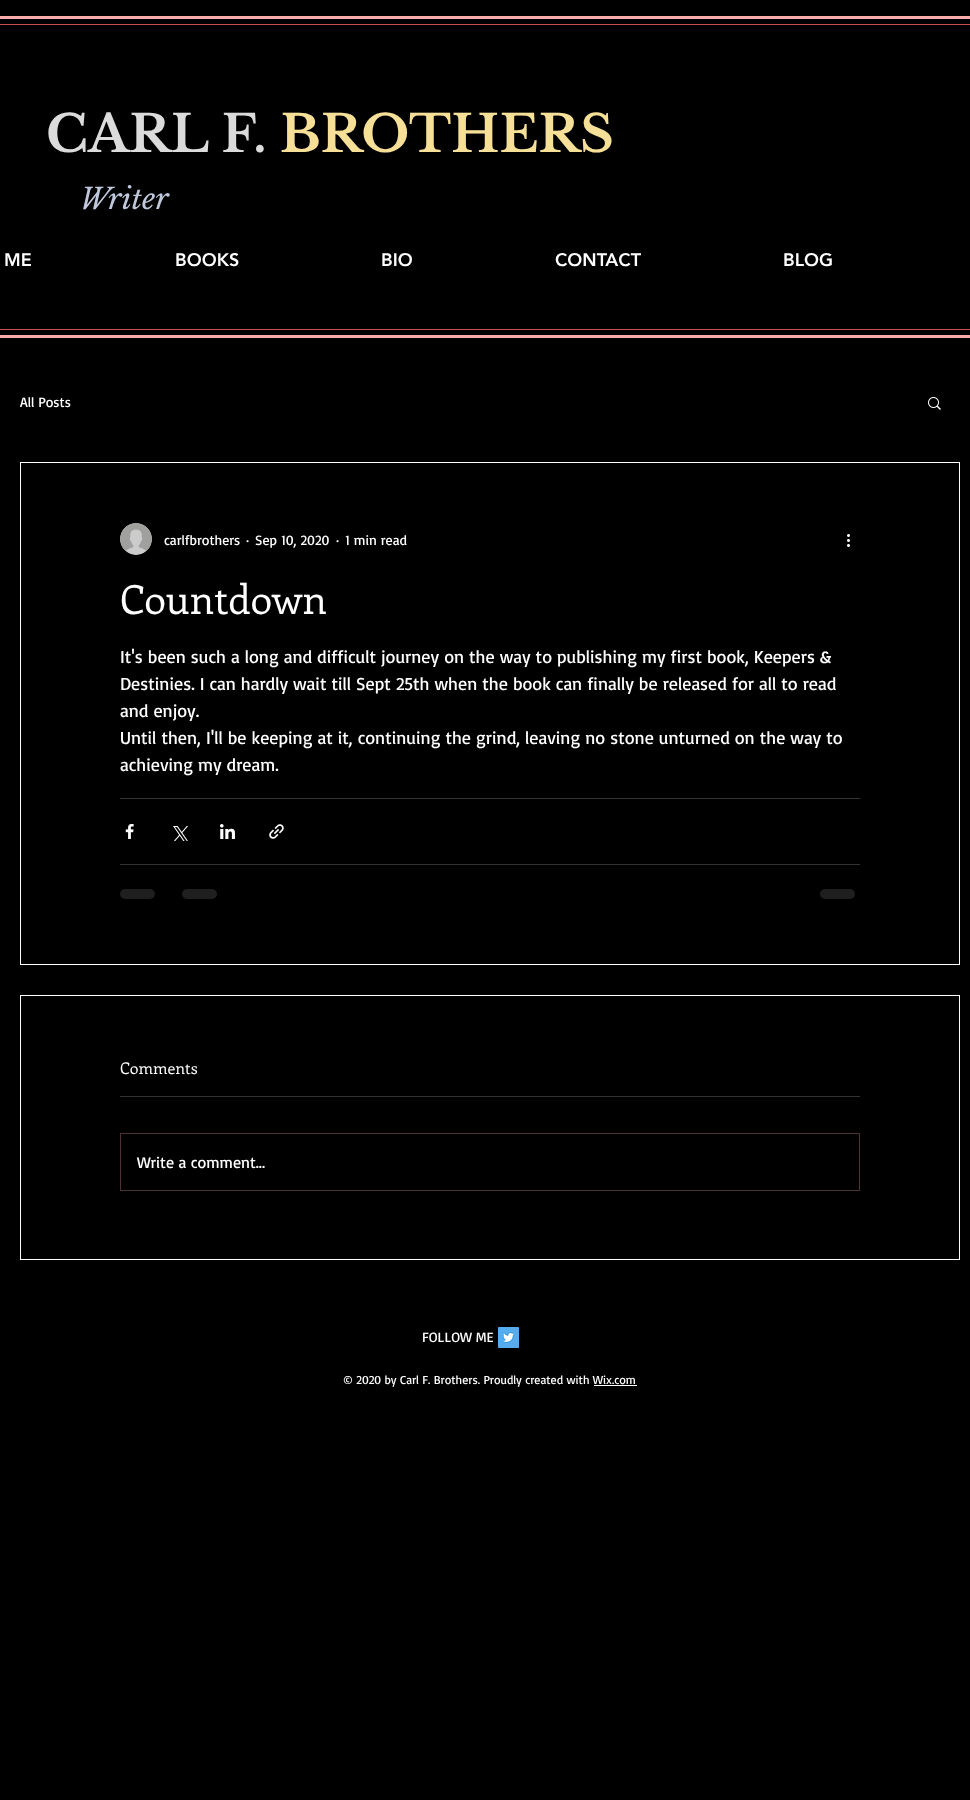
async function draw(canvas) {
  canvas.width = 970
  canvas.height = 1800
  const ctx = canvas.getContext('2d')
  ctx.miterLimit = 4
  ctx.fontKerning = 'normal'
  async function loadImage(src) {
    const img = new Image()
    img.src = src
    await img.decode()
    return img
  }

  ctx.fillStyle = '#000'
  ctx.fillRect(0, 0, 970, 1800)
  ctx.fillStyle = '#fcabab'
  ctx.fillRect(0, 16, 970, 3)
  ctx.fillRect(0, 335, 970, 3)
  ctx.fillStyle = '#c85050'
  ctx.fillRect(0, 24, 970, 1)
  ctx.fillRect(0, 329, 970, 1)
  ctx.font = 'bold 51px Libre Baskerville'
  ctx.fillStyle = '#dbdbdb'
  ctx.fillText('CARL F.', 46, 152)
  ctx.fillStyle = '#f6e098'
  ctx.fillText('BROTHERS', 280, 152)
  ctx.font = 'italic 29px Libre Baskerville'
  ctx.fillStyle = '#c0c9dc'
  ctx.fillText('Writer', 80, 209)
  ctx.font = '900 18px "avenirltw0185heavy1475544"'
  ctx.fillStyle = '#fff'
  ctx.fillText('ME', 4, 266)
  ctx.fillText('BOOKS', 175, 266)
  ctx.fillText('BIO', 381, 266)
  ctx.fillText('CONTACT', 555, 266)
  ctx.fillText('BLOG', 783, 266)
  ctx.font = '14px Basic'
  ctx.fillText('All Posts', 20, 407)
  ctx.drawImage(await loadImage('image0.png'), 928, 397, 13, 13)
  ctx.strokeStyle = '#fff'
  ctx.strokeRect(20.5, 462.5, 939, 502)
  ctx.drawImage(await loadImage('image1.png'), 120, 523, 32, 32)
  ctx.fillText('carlfbrothers', 164, 545)
  ctx.fillText('·', 246, 545)
  ctx.fillText('Sep 10, 2020', 255, 545)
  ctx.fillText('·', 336, 545)
  ctx.fillText('1 min read', 345, 545)
  ctx.drawImage(await loadImage('image2.png'), 847, 534, 3, 13)
  ctx.font = '40px Enriqueta'
  ctx.fillText('Countdown', 120, 614)
  ctx.font = '18px Basic'
  ctx.fillText('It\'s been such a long and difficult journey on the way to publishing my first book, Keepers &', 120, 663)
  ctx.fillText('Destinies. I can hardly wait till Sept 25th when the book can finally be released for all to read', 120, 690)
  ctx.fillText('and enjoy.', 120, 717)
  ctx.fillText('Until then, I\'ll be keeping at it, continuing the grind, leaving no stone unturned on the way to', 120, 744)
  ctx.fillText('achieving my dream.', 120, 771)
  ctx.fillStyle = '#333'
  ctx.fillRect(120, 798, 740, 1)
  ctx.drawImage(await loadImage('image3.png'), 125, 824, 9, 15)
  ctx.drawImage(await loadImage('image4.png'), 173, 826, 15, 15)
  ctx.drawImage(await loadImage('image5.png'), 220, 824, 15, 15)
  ctx.drawImage(await loadImage('image6.png'), 269, 824, 15, 15)
  ctx.fillRect(120, 864, 740, 1)
  ctx.fillStyle = '#1f1f1f'
  ctx.beginPath()
  ctx.roundRect(120, 889, 35, 10, 5)
  ctx.fill()
  ctx.beginPath()
  ctx.roundRect(182, 889, 35, 10, 5)
  ctx.fill()
  ctx.beginPath()
  ctx.roundRect(820, 889, 35, 10, 5)
  ctx.fill()
  ctx.strokeRect(20.5, 995.5, 939, 264)
  ctx.font = '16px Enriqueta'
  ctx.fillStyle = '#fff'
  ctx.fillText('Comments', 120, 1074)
  ctx.fillStyle = '#333'
  ctx.fillRect(120, 1096, 740, 1)
  ctx.strokeStyle = '#4c3333'
  ctx.strokeRect(120.5, 1133.5, 739, 57)
  ctx.font = '16px Basic'
  ctx.fillStyle = '#fff'
  ctx.fillText('Write a comment...', 137, 1168)
  ctx.font = '14px Basic'
  ctx.fillText('FOLLOW ME', 422, 1342)
  ctx.drawImage(await loadImage('image7.png'), 498, 1327, 21, 21)
  ctx.font = '12px Basic'
  ctx.fillText('© 2020 by Carl F. Brothers. Proudly created with Wix.com', 343, 1384)
  ctx.fillRect(594, 1385, 43, 1)
}

draw(document.querySelector('canvas'))
